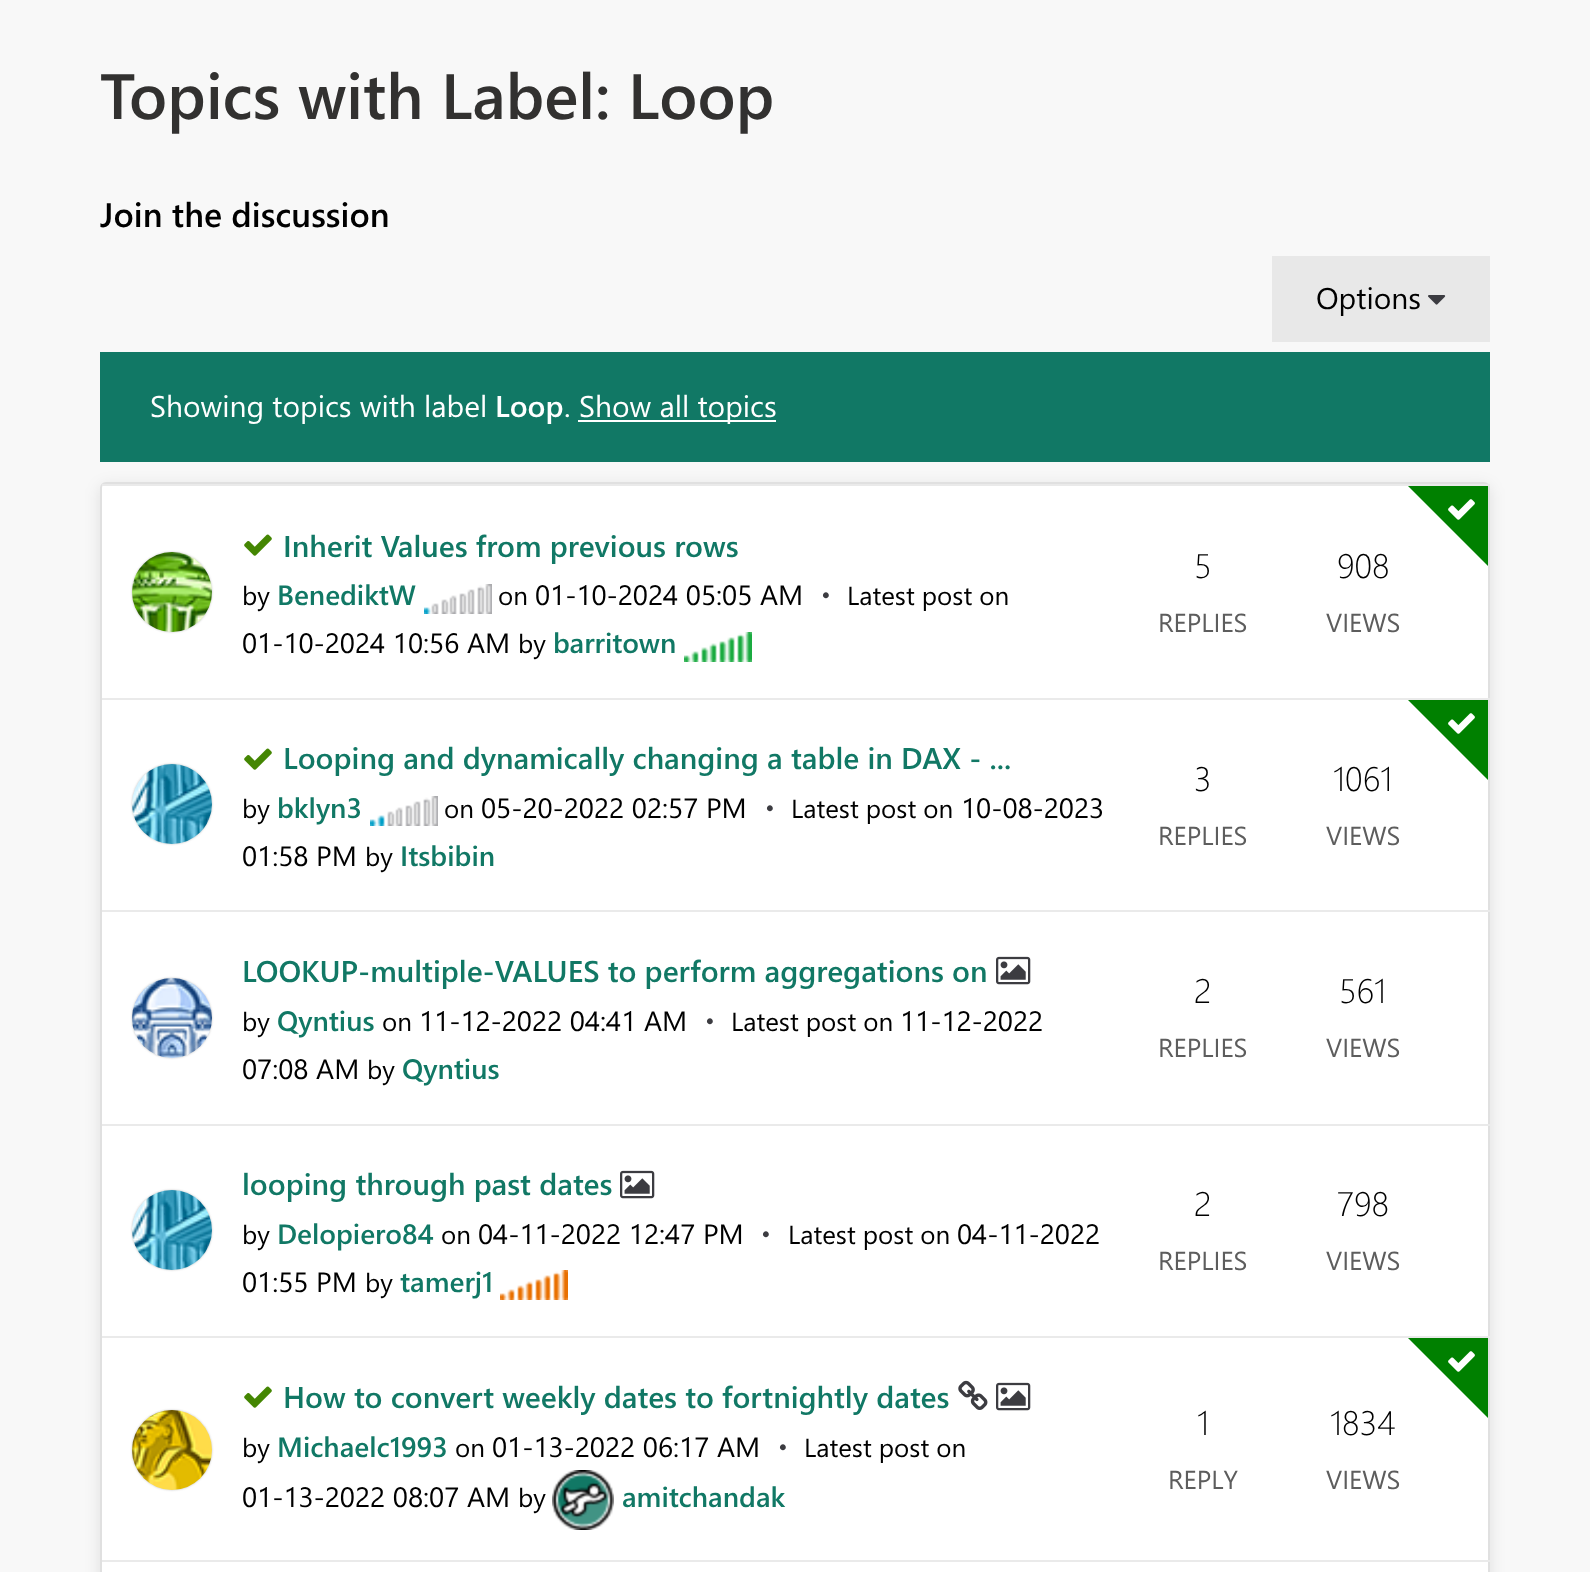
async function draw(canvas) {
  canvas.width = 1590
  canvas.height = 1572
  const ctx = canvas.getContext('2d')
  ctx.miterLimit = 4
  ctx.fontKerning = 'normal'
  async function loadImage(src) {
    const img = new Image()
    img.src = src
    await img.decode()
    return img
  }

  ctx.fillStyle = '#f8f8f8'
  ctx.fillRect(0, 0, 1590, 1572)
  ctx.font = '600 64px Segoe UI'
  ctx.fillStyle = '#323130'
  ctx.fillText('Topics with Label: Loop', 100, 119)
  ctx.font = '600 34px Segoe UI'
  ctx.fillStyle = '#000'
  ctx.fillText('Join the discussion', 100, 227)
  ctx.fillStyle = '#e8e8e8'
  ctx.fillRect(1272, 256, 218, 86)
  ctx.font = '30px Segoe UI'
  ctx.fillStyle = '#000'
  ctx.fillText('Options', 1316, 309)
  ctx.drawImage(await loadImage('image0.png'), 1428, 295, 18, 10)
  ctx.fillStyle = '#0000001a'
  ctx.filter = 'blur(8px)'
  ctx.beginPath()
  ctx.roundRect(100, 486, 1390, 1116, 6)
  ctx.fill()
  ctx.filter = 'none'
  ctx.fillStyle = '#117865'
  ctx.fillRect(100, 352, 1390, 110)
  ctx.fillStyle = '#fff'
  ctx.fillText('Showing topics with label', 150, 417)
  ctx.font = '600 30px "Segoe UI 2"'
  ctx.fillText('Loop', 495, 417)
  ctx.font = '30px Segoe UI'
  ctx.fillText('.', 564, 417)
  ctx.fillRect(578, 420, 198, 2)
  ctx.fillText('Show all topics', 579, 417)
  ctx.beginPath()
  ctx.roundRect(101, 483, 1388, 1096, 5)
  ctx.fill()
  ctx.strokeStyle = '#e0e0e0'
  ctx.lineWidth = 2
  ctx.stroke()
  ctx.fillStyle = '#eaeaea'
  ctx.fillRect(102, 698, 1388, 2)
  ctx.fillRect(102, 484, 1388, 2)
  ctx.fillStyle = '#008000'
  ctx.beginPath()
  ctx.moveTo(1408, 486)
  ctx.lineTo(1488, 486)
  ctx.lineTo(1488, 566)
  ctx.closePath()
  ctx.fill()
  ctx.drawImage(await loadImage('image1.png'), 1448, 499, 27, 21)
  ctx.fillStyle = '#c4c4c4'
  ctx.filter = 'blur(1px)'
  ctx.beginPath()
  ctx.roundRect(132, 552, 80, 80, 40)
  ctx.fill()
  ctx.filter = 'none'
  ctx.drawImage(await loadImage('image2.png'), 132, 552, 80, 80)
  ctx.drawImage(await loadImage('image3.png'), 244, 534, 28, 22)
  ctx.font = '600 30px Segoe UI'
  ctx.fillStyle = '#117865'
  ctx.fillText('Inherit Values from previous rows', 283, 557)
  ctx.font = '26px Segoe UI'
  ctx.fillStyle = '#000'
  ctx.fillText('by', 242, 605)
  ctx.font = '600 28px Segoe UI'
  ctx.fillStyle = '#117865'
  ctx.fillText('BenediktW', 277, 605)
  ctx.drawImage(await loadImage('image4.png'), 424, 584, 68, 30)
  ctx.font = '26px Segoe UI'
  ctx.fillStyle = '#000'
  ctx.fillText('on', 498, 605)
  ctx.font = '28px Segoe UI'
  ctx.fillText('01-10-2024 05:05 AM', 535, 605)
  ctx.font = '24px Segoe UI'
  ctx.fillStyle = '#3c3c41'
  ctx.fillText('•', 821, 603)
  ctx.font = '26px Segoe UI'
  ctx.fillStyle = '#000'
  ctx.fillText('Latest post on', 847, 605)
  ctx.font = '28px Segoe UI'
  ctx.fillText('01-10-2024 10:56 AM', 242, 653)
  ctx.font = '26px Segoe UI'
  ctx.fillText('by', 518, 653)
  ctx.font = '600 28px Segoe UI'
  ctx.fillStyle = '#117865'
  ctx.fillText('barritown', 553, 653)
  ctx.drawImage(await loadImage('image5.png'), 684, 632, 68, 30)
  ctx.font = '300 34px Segoe UI'
  ctx.fillStyle = '#000'
  ctx.fillText('5', 1194, 578)
  ctx.font = '26px Segoe UI'
  ctx.fillStyle = '#5d5d5d'
  ctx.fillText('REPLIES', 1158, 632)
  ctx.font = '300 34px Segoe UI'
  ctx.fillStyle = '#000'
  ctx.fillText('908', 1337, 578)
  ctx.font = '26px Segoe UI'
  ctx.fillStyle = '#5d5d5d'
  ctx.fillText('VIEWS', 1326, 632)
  ctx.fillStyle = '#eaeaea'
  ctx.fillRect(102, 910, 1388, 2)
  ctx.fillStyle = '#c4c4c4'
  ctx.filter = 'blur(1px)'
  ctx.beginPath()
  ctx.roundRect(132, 764, 80, 80, 40)
  ctx.fill()
  ctx.filter = 'none'
  ctx.drawImage(await loadImage('image6.png'), 132, 764, 80, 80)
  ctx.drawImage(await loadImage('image3.png'), 244, 748, 28, 22)
  ctx.font = '600 30px Segoe UI'
  ctx.fillStyle = '#117865'
  ctx.fillText('Looping and dynamically changing a table in DAX - ...', 283, 769)
  ctx.font = '26px Segoe UI'
  ctx.fillStyle = '#000'
  ctx.fillText('by', 242, 818)
  ctx.font = '600 28px Segoe UI'
  ctx.fillStyle = '#117865'
  ctx.fillText('bklyn3', 277, 818)
  ctx.drawImage(await loadImage('image7.png'), 370, 796, 68, 30)
  ctx.font = '26px Segoe UI'
  ctx.fillStyle = '#000'
  ctx.fillText('on', 444, 818)
  ctx.font = '28px Segoe UI'
  ctx.fillText('05-20-2022 02:57 PM', 481, 818)
  ctx.font = '24px Segoe UI'
  ctx.fillStyle = '#3c3c41'
  ctx.fillText('•', 765, 816)
  ctx.font = '26px Segoe UI'
  ctx.fillStyle = '#000'
  ctx.fillText('Latest post on', 791, 818)
  ctx.font = '28px Segoe UI'
  ctx.fillText('10-08-2023', 961, 818)
  ctx.fillText('01:58 PM', 242, 866)
  ctx.font = '26px Segoe UI'
  ctx.fillText('by', 365, 866)
  ctx.font = '600 28px Segoe UI'
  ctx.fillStyle = '#117865'
  ctx.fillText('Itsbibin', 400, 866)
  ctx.font = '300 34px Segoe UI'
  ctx.fillStyle = '#000'
  ctx.fillText('3', 1194, 791)
  ctx.font = '26px Segoe UI'
  ctx.fillStyle = '#5d5d5d'
  ctx.fillText('REPLIES', 1158, 845)
  ctx.font = '300 34px Segoe UI'
  ctx.fillStyle = '#000'
  ctx.fillText('1061', 1333, 791)
  ctx.font = '26px Segoe UI'
  ctx.fillStyle = '#5d5d5d'
  ctx.fillText('VIEWS', 1326, 845)
  ctx.fillStyle = '#008000'
  ctx.beginPath()
  ctx.moveTo(1408, 700)
  ctx.lineTo(1488, 700)
  ctx.lineTo(1488, 780)
  ctx.closePath()
  ctx.fill()
  ctx.drawImage(await loadImage('image1.png'), 1448, 713, 27, 21)
  ctx.fillStyle = '#eaeaea'
  ctx.fillRect(102, 1124, 1388, 2)
  ctx.fillStyle = '#c4c4c4'
  ctx.filter = 'blur(1px)'
  ctx.beginPath()
  ctx.roundRect(132, 978, 80, 80, 40)
  ctx.fill()
  ctx.filter = 'none'
  ctx.drawImage(await loadImage('image8.png'), 132, 978, 80, 80)
  ctx.font = '600 30px Segoe UI'
  ctx.fillStyle = '#117865'
  ctx.fillText('LOOKUP-multiple-VALUES to perform aggregations on', 242, 982)
  ctx.drawImage(await loadImage('image9.png'), 996, 956, 35, 29)
  ctx.font = '26px Segoe UI'
  ctx.fillStyle = '#000'
  ctx.fillText('by', 242, 1031)
  ctx.font = '600 28px Segoe UI'
  ctx.fillStyle = '#117865'
  ctx.fillText('Qyntius', 277, 1031)
  ctx.font = '26px Segoe UI'
  ctx.fillStyle = '#000'
  ctx.fillText('on', 382, 1031)
  ctx.font = '28px Segoe UI'
  ctx.fillText('11-12-2022 04:41 AM', 419, 1031)
  ctx.font = '24px Segoe UI'
  ctx.fillStyle = '#3c3c41'
  ctx.fillText('•', 705, 1029)
  ctx.font = '26px Segoe UI'
  ctx.fillStyle = '#000'
  ctx.fillText('Latest post on', 731, 1031)
  ctx.font = '28px Segoe UI'
  ctx.fillText('11-12-2022', 900, 1031)
  ctx.fillText('07:08 AM', 242, 1079)
  ctx.font = '26px Segoe UI'
  ctx.fillText('by', 367, 1079)
  ctx.font = '600 28px Segoe UI'
  ctx.fillStyle = '#117865'
  ctx.fillText('Qyntius', 402, 1079)
  ctx.font = '300 34px Segoe UI'
  ctx.fillStyle = '#000'
  ctx.fillText('2', 1194, 1003)
  ctx.font = '26px Segoe UI'
  ctx.fillStyle = '#5d5d5d'
  ctx.fillText('REPLIES', 1158, 1057)
  ctx.font = '300 34px Segoe UI'
  ctx.fillStyle = '#000'
  ctx.fillText('561', 1339, 1003)
  ctx.font = '26px Segoe UI'
  ctx.fillStyle = '#5d5d5d'
  ctx.fillText('VIEWS', 1326, 1057)
  ctx.fillStyle = '#eaeaea'
  ctx.fillRect(102, 1336, 1388, 2)
  ctx.fillStyle = '#c4c4c4'
  ctx.filter = 'blur(1px)'
  ctx.beginPath()
  ctx.roundRect(132, 1190, 80, 80, 40)
  ctx.fill()
  ctx.filter = 'none'
  ctx.drawImage(await loadImage('image10.png'), 132, 1190, 80, 80)
  ctx.font = '600 30px Segoe UI'
  ctx.fillStyle = '#117865'
  ctx.fillText('looping through past dates', 242, 1195)
  ctx.drawImage(await loadImage('image9.png'), 620, 1170, 35, 29)
  ctx.font = '26px Segoe UI'
  ctx.fillStyle = '#000'
  ctx.fillText('by', 242, 1244)
  ctx.font = '600 28px Segoe UI'
  ctx.fillStyle = '#117865'
  ctx.fillText('Delopiero84', 277, 1244)
  ctx.font = '26px Segoe UI'
  ctx.fillStyle = '#000'
  ctx.fillText('on', 441, 1244)
  ctx.font = '28px Segoe UI'
  ctx.fillText('04-11-2022 12:47 PM', 478, 1244)
  ctx.font = '24px Segoe UI'
  ctx.fillStyle = '#3c3c41'
  ctx.fillText('•', 761, 1242)
  ctx.font = '26px Segoe UI'
  ctx.fillStyle = '#000'
  ctx.fillText('Latest post on', 788, 1244)
  ctx.font = '28px Segoe UI'
  ctx.fillText('04-11-2022', 957, 1244)
  ctx.fillText('01:55 PM', 242, 1292)
  ctx.font = '26px Segoe UI'
  ctx.fillText('by', 365, 1292)
  ctx.font = '600 28px Segoe UI'
  ctx.fillStyle = '#117865'
  ctx.fillText('tamerj1', 400, 1292)
  ctx.drawImage(await loadImage('image11.png'), 500, 1270, 68, 30)
  ctx.font = '300 34px Segoe UI'
  ctx.fillStyle = '#000'
  ctx.fillText('2', 1194, 1216)
  ctx.font = '26px Segoe UI'
  ctx.fillStyle = '#5d5d5d'
  ctx.fillText('REPLIES', 1158, 1270)
  ctx.font = '300 34px Segoe UI'
  ctx.fillStyle = '#000'
  ctx.fillText('798', 1337, 1216)
  ctx.font = '26px Segoe UI'
  ctx.fillStyle = '#5d5d5d'
  ctx.fillText('VIEWS', 1326, 1270)
  ctx.fillStyle = '#eaeaea'
  ctx.fillRect(102, 1560, 1388, 2)
  ctx.fillStyle = '#c4c4c4'
  ctx.filter = 'blur(1px)'
  ctx.beginPath()
  ctx.roundRect(132, 1410, 80, 80, 40)
  ctx.fill()
  ctx.filter = 'none'
  ctx.drawImage(await loadImage('image12.png'), 132, 1410, 80, 80)
  ctx.drawImage(await loadImage('image3.png'), 244, 1386, 28, 22)
  ctx.font = '600 30px Segoe UI'
  ctx.fillStyle = '#117865'
  ctx.fillText('How to convert weekly dates to fortnightly dates', 283, 1408)
  ctx.drawImage(await loadImage('image13.png'), 958, 1380, 30, 30)
  ctx.drawImage(await loadImage('image9.png'), 996, 1382, 35, 29)
  ctx.font = '26px Segoe UI'
  ctx.fillStyle = '#000'
  ctx.fillText('by', 242, 1457)
  ctx.font = '600 28px Segoe UI'
  ctx.fillStyle = '#117865'
  ctx.fillText('Michaelc1993', 277, 1457)
  ctx.font = '26px Segoe UI'
  ctx.fillStyle = '#000'
  ctx.fillText('on', 455, 1457)
  ctx.font = '28px Segoe UI'
  ctx.fillText('01-13-2022 06:17 AM', 492, 1457)
  ctx.font = '24px Segoe UI'
  ctx.fillStyle = '#3c3c41'
  ctx.fillText('•', 778, 1455)
  ctx.font = '26px Segoe UI'
  ctx.fillStyle = '#000'
  ctx.fillText('Latest post on', 804, 1457)
  ctx.font = '28px Segoe UI'
  ctx.fillText('01-13-2022 08:07 AM', 242, 1507)
  ctx.font = '26px Segoe UI'
  ctx.fillText('by', 518, 1507)
  ctx.drawImage(await loadImage('image14.png'), 552, 1470, 62, 60)
  ctx.font = '600 28px Segoe UI'
  ctx.fillStyle = '#117865'
  ctx.fillText('amitchandak', 622, 1507)
  ctx.font = '300 34px Segoe UI'
  ctx.fillStyle = '#000'
  ctx.fillText('1', 1197, 1435)
  ctx.font = '26px Segoe UI'
  ctx.fillStyle = '#5d5d5d'
  ctx.fillText('REPLY', 1168, 1489)
  ctx.font = '300 34px Segoe UI'
  ctx.fillStyle = '#000'
  ctx.fillText('1834', 1330, 1435)
  ctx.font = '26px Segoe UI'
  ctx.fillStyle = '#5d5d5d'
  ctx.fillText('VIEWS', 1326, 1489)
  ctx.fillStyle = '#008000'
  ctx.beginPath()
  ctx.moveTo(1408, 1338)
  ctx.lineTo(1488, 1338)
  ctx.lineTo(1488, 1418)
  ctx.closePath()
  ctx.fill()
  ctx.drawImage(await loadImage('image1.png'), 1448, 1351, 27, 21)
}

draw(document.querySelector('canvas'))
